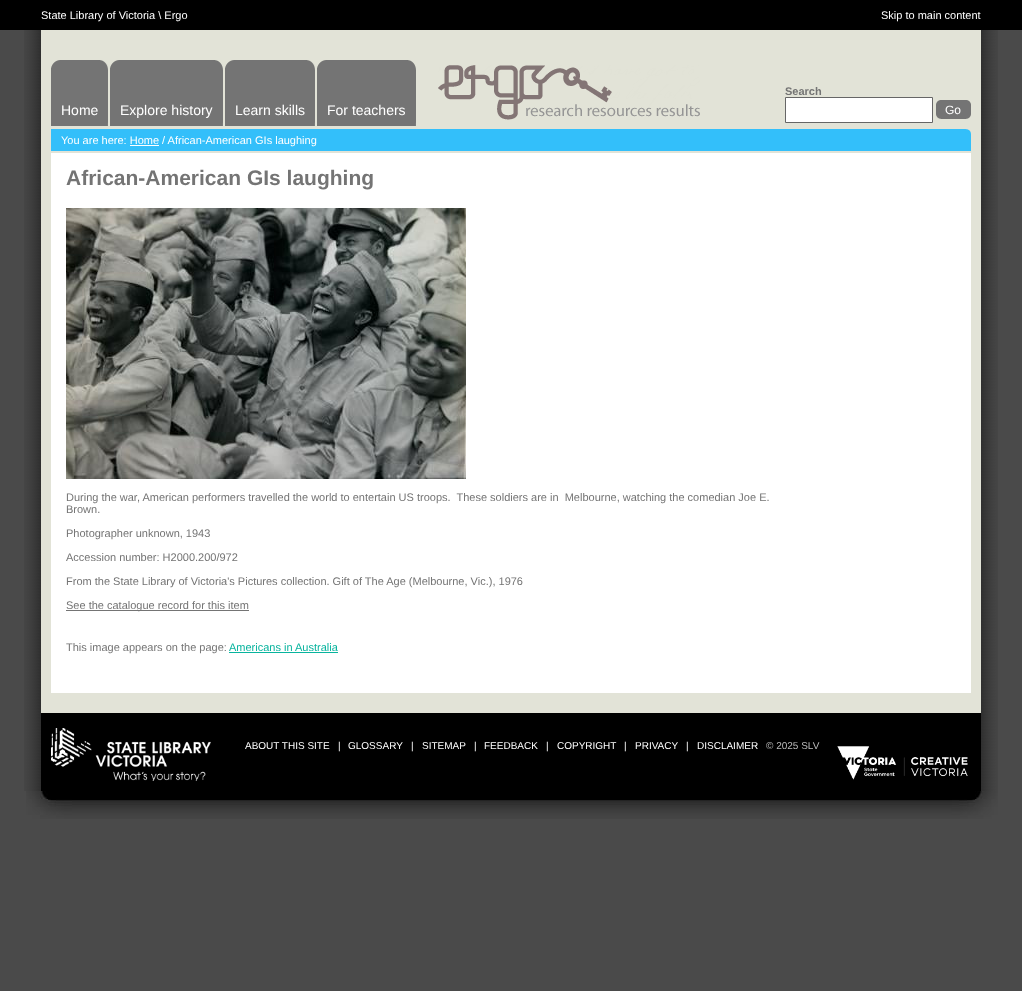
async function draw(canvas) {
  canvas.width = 1022
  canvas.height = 991
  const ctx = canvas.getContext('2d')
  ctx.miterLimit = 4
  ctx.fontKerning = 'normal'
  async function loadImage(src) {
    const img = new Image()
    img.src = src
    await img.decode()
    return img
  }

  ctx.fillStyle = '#4a4a4a'
  ctx.fillRect(0, 0, 1022, 991)
  ctx.fillStyle = '#000'
  ctx.fillRect(0, 0, 1022, 30)
  ctx.font = '11px Liberation Sans'
  ctx.fillStyle = '#fff'
  ctx.fillText('State Library of Victoria \\ Ergo', 41, 19)
  ctx.fillText('Skip to main content', 881, 19)
  ctx.drawImage(await loadImage('image0.png'), 24, 30, 974, 761)
  ctx.drawImage(await loadImage('image1.png'), 51, 60, 10, 66)
  ctx.drawImage(await loadImage('image2.png'), 61, 60, 47, 66)
  ctx.font = '14px Liberation Sans'
  ctx.fillText('Home', 61, 115)
  ctx.drawImage(await loadImage('image1.png'), 110, 60, 10, 66)
  ctx.drawImage(await loadImage('image3.png'), 120, 60, 103, 66)
  ctx.fillText('Explore history', 120, 115)
  ctx.drawImage(await loadImage('image1.png'), 225, 60, 10, 66)
  ctx.drawImage(await loadImage('image4.png'), 235, 60, 80, 66)
  ctx.fillText('Learn skills', 235, 115)
  ctx.drawImage(await loadImage('image1.png'), 317, 60, 10, 66)
  ctx.drawImage(await loadImage('image5.png'), 327, 60, 89, 66)
  ctx.fillText('For teachers', 327, 115)
  ctx.drawImage(await loadImage('image6.png'), 438, 65, 262, 55)
  ctx.font = 'bold 11px Liberation Sans'
  ctx.fillStyle = '#747474'
  ctx.fillText('Search', 785, 95)
  ctx.fillStyle = '#fff'
  ctx.beginPath()
  ctx.rect(785.5, 97.5, 147, 25)
  ctx.fill()
  ctx.strokeStyle = '#666'
  ctx.stroke()
  ctx.drawImage(await loadImage('image7.png'), 936, 100, 35, 19)
  ctx.font = '12px Liberation Sans'
  ctx.fillText('Go', 945, 114)
  ctx.fillStyle = '#33bffa'
  ctx.fillRect(51, 129, 920, 22)
  ctx.drawImage(await loadImage('image8.png'), 965, 129, 6, 5)
  ctx.font = '11px Liberation Sans'
  ctx.fillStyle = '#fff'
  ctx.fillText('You are here: Home / African-American GIs laughing', 61, 144)
  ctx.fillRect(130, 145, 29, 1)
  ctx.fillRect(51, 153, 920, 540)
  ctx.font = 'bold 21px Liberation Sans'
  ctx.fillStyle = '#747474'
  ctx.fillText('African-American GIs laughing', 66, 185)
  ctx.drawImage(await loadImage('image9.png'), 66, 208, 400, 271)
  ctx.font = '11px Liberation Sans'
  ctx.fillText('During the war, American performers travelled the world to entertain US troops.  These soldiers are in  Melbourne, watching the comedian Joe E.', 66, 501)
  ctx.fillText('Brown.', 66, 513)
  ctx.fillText('Photographer unknown, 1943', 66, 537)
  ctx.fillText('Accession number: H2000.200/972', 66, 561)
  ctx.fillText('From the State Library of Victoria\'s Pictures collection. Gift of The Age (Melbourne, Vic.), 1976', 66, 585)
  ctx.fillRect(66, 610, 183, 1)
  ctx.fillText('See the catalogue record for this item', 66, 609)
  ctx.fillText('This image appears on the page:', 66, 651)
  ctx.fillStyle = '#08b49e'
  ctx.fillText('Americans in Australia', 229, 651)
  ctx.fillRect(229, 652, 109, 1)
  ctx.fillStyle = '#000'
  ctx.fillRect(41, 713, 940, 78)
  ctx.drawImage(await loadImage('image10.png'), 51, 728, 160, 53)
  ctx.font = '10px Liberation Sans'
  ctx.fillStyle = '#fff'
  ctx.fillText('ABOUT THIS SITE', 245, 749)
  ctx.fillText('|', 338, 749)
  ctx.fillText('GLOSSARY', 348, 749)
  ctx.fillText('|', 411, 749)
  ctx.fillText('SITEMAP', 422, 749)
  ctx.fillText('|', 474, 749)
  ctx.fillText('FEEDBACK', 484, 749)
  ctx.fillText('|', 546, 749)
  ctx.fillText('COPYRIGHT', 557, 749)
  ctx.fillText('|', 624, 749)
  ctx.fillText('PRIVACY', 635, 749)
  ctx.fillText('|', 686, 749)
  ctx.fillText('DISCLAIMER', 697, 749)
  ctx.fillStyle = '#bcbcbc'
  ctx.fillText('© 2025 SLV', 766, 749)
  ctx.drawImage(await loadImage('image11.png'), 837, 746, 131, 34)
  ctx.drawImage(await loadImage('image12.png'), 26, 791, 972, 28)
}

draw(document.querySelector('canvas'))
